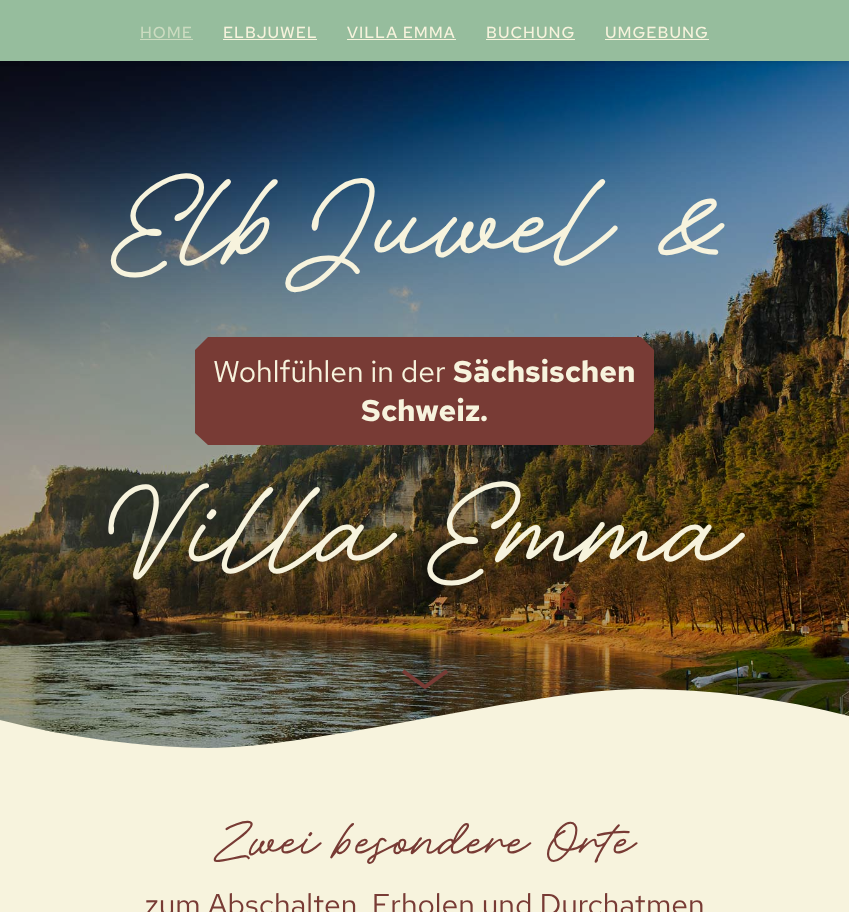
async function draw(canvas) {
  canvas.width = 849
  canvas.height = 912
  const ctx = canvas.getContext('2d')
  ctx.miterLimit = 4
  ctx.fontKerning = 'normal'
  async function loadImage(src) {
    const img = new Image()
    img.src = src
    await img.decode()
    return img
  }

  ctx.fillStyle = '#f7f3dd'
  ctx.fillRect(0, 0, 849, 912)
  ctx.drawImage(await loadImage('image0.png'), 0, 61, 849, 687)
  ctx.fillStyle = '#0000001f'
  ctx.filter = 'blur(2.5px)'
  ctx.beginPath()
  ctx.rect(0, 1, 849, 61)
  ctx.fill()
  ctx.filter = 'none'
  ctx.fillStyle = '#96bd9d'
  ctx.fillRect(0, 0, 849, 61)
  ctx.letterSpacing = '1px'
  ctx.font = '500 16px Red Hat Text'
  ctx.fillStyle = '#cbdbc0'
  ctx.fillText('HOME', 140, 38)
  ctx.fillRect(140, 39, 53, 1)
  ctx.fillStyle = '#f7f3dd'
  ctx.fillText('ELBJUWEL', 223, 38)
  ctx.fillRect(223, 39, 94, 1)
  ctx.fillText('VILLA EMMA', 347, 38)
  ctx.fillRect(347, 39, 109, 1)
  ctx.fillText('BUCHUNG', 486, 38)
  ctx.fillRect(486, 39, 89, 1)
  ctx.fillText('UMGEBUNG', 605, 38)
  ctx.fillRect(605, 39, 104, 1)
  ctx.save()
  ctx.beginPath()
  ctx.rect(0, 689, 849, 101)
  ctx.clip()
  ctx.beginPath()
  ctx.moveTo(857, 718)
  ctx.bezierCurveTo(785, 699, 713, 689, 641, 689)
  ctx.bezierCurveTo(533, 689, 316, 748, 208, 748)
  ctx.bezierCurveTo(136, 747, 64, 737, -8, 718)
  ctx.lineTo(-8, 791)
  ctx.lineTo(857, 791)
  ctx.closePath()
  ctx.fill()
  ctx.restore()
  ctx.letterSpacing = '0.1px'
  ctx.font = 'bold 180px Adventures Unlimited'
  ctx.fillText('ElbJuwel &', 118, 254)
  ctx.fillStyle = '#783b35'
  ctx.beginPath()
  ctx.moveTo(195, 350)
  ctx.lineTo(208, 337)
  ctx.lineTo(641, 337)
  ctx.lineTo(654, 350)
  ctx.lineTo(654, 433)
  ctx.lineTo(641, 445)
  ctx.lineTo(208, 445)
  ctx.lineTo(195, 433)
  ctx.closePath()
  ctx.fill()
  ctx.letterSpacing = '0px'
  ctx.font = '30px Red Hat Text'
  ctx.fillStyle = '#f7f3dd'
  ctx.fillText('Wohlfühlen in der', 213, 382)
  ctx.font = 'bold 30px Red Hat Text'
  ctx.fillText('Sächsischen', 453, 382)
  ctx.fillText('Schweiz.', 361, 421)
  ctx.letterSpacing = '0.1px'
  ctx.font = 'bold 180px Adventures Unlimited'
  ctx.fillText('Villa Emma', 109, 562)
  ctx.drawImage(await loadImage('image1.png'), 402, 669, 46, 20)
  ctx.font = 'bold 75px Adventures Unlimited'
  ctx.fillStyle = '#783b35'
  ctx.fillText('Zwei besondere Orte', 214, 854)
  ctx.letterSpacing = '0px'
  ctx.font = '30px Red Hat Text'
  ctx.fillText('zum Abschalten, Erholen und Durchatmen', 145, 915)
}

draw(document.querySelector('canvas'))
